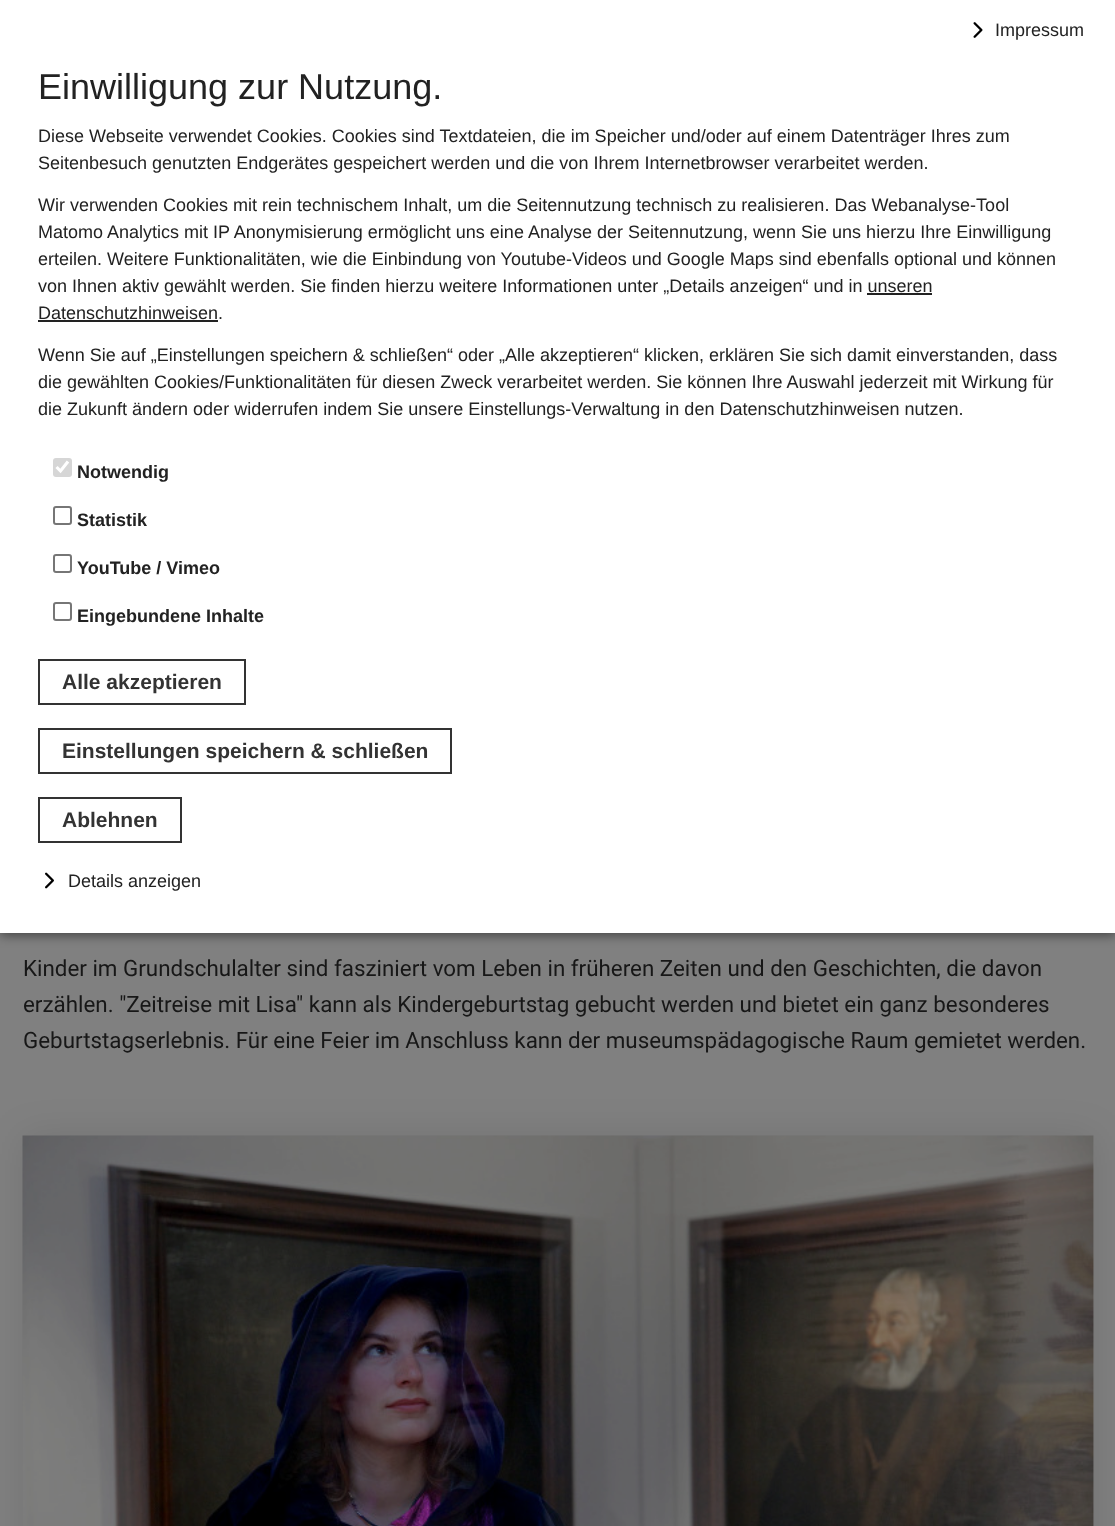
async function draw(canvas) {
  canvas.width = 1115
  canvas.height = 1526
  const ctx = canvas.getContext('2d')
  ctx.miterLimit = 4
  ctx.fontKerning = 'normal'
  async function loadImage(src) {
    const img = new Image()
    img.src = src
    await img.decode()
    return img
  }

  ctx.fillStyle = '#808080'
  ctx.fillRect(0, 0, 1115, 1526)
  ctx.fillStyle = '#00000080'
  ctx.filter = 'blur(6px)'
  ctx.beginPath()
  ctx.rect(0, 2, 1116, 933)
  ctx.fill()
  ctx.filter = 'none'
  ctx.fillStyle = '#fff'
  ctx.fillRect(0, 0, 1115, 933)
  ctx.drawImage(await loadImage('image0.png'), 973, 22, 10, 16)
  ctx.font = '18px Liberation Sans'
  ctx.fillStyle = '#222'
  ctx.fillText('Impressum', 995, 36)
  ctx.font = '36px Liberation Sans'
  ctx.fillText('Einwilligung zur Nutzung.', 38, 99)
  ctx.font = '18px Liberation Sans'
  ctx.fillText('Diese Webseite verwendet Cookies. Cookies sind Textdateien, die im Speicher und/oder auf einem Datenträger Ihres zum', 38, 142)
  ctx.fillText('Seitenbesuch genutzten Endgerätes gespeichert werden und die von Ihrem Internetbrowser verarbeitet werden.', 38, 169)
  ctx.fillText('Wir verwenden Cookies mit rein technischem Inhalt, um die Seitennutzung technisch zu realisieren. Das Webanalyse-Tool', 38, 211)
  ctx.fillText('Matomo Analytics mit IP Anonymisierung ermöglicht uns eine Analyse der Seitennutzung, wenn Sie uns hierzu Ihre Einwilligung', 38, 238)
  ctx.fillText('erteilen. Weitere Funktionalitäten, wie die Einbindung von Youtube-Videos und Google Maps sind ebenfalls optional und können', 38, 265)
  ctx.fillText('von Ihnen aktiv gewählt werden. Sie finden hierzu weitere Informationen unter „Details anzeigen“ und in unseren', 38, 292)
  ctx.fillText('Datenschutzhinweisen.', 38, 319)
  ctx.fillRect(867, 293, 65, 2)
  ctx.fillRect(38, 320, 180, 2)
  ctx.fillText('Wenn Sie auf „Einstellungen speichern & schließen“ oder „Alle akzeptieren“ klicken, erklären Sie sich damit einverstanden, dass', 38, 361)
  ctx.fillText('die gewählten Cookies/Funktionalitäten für diesen Zweck verarbeitet werden. Sie können Ihre Auswahl jederzeit mit Wirkung für', 38, 388)
  ctx.fillText('die Zukunft ändern oder widerrufen indem Sie unsere Einstellungs-Verwaltung in den Datenschutzhinweisen nutzen.', 38, 415)
  ctx.fillStyle = '#d6d6d6'
  ctx.beginPath()
  ctx.roundRect(53, 458, 19, 19, 3)
  ctx.fill()
  ctx.beginPath()
  ctx.moveTo(56.5, 467)
  ctx.lineTo(60.5, 471)
  ctx.lineTo(68, 461.5)
  ctx.strokeStyle = '#fff'
  ctx.lineWidth = 3.1
  ctx.stroke()
  ctx.font = 'bold 18px Liberation Sans'
  ctx.fillStyle = '#222'
  ctx.fillText('Notwendig', 77, 478)
  ctx.beginPath()
  ctx.roundRect(54, 507, 17, 17, 2)
  ctx.strokeStyle = '#767676'
  ctx.lineWidth = 2
  ctx.stroke()
  ctx.fillText('Statistik', 77, 526)
  ctx.beginPath()
  ctx.roundRect(54, 555, 17, 17, 2)
  ctx.stroke()
  ctx.fillText('YouTube / Vimeo', 77, 574)
  ctx.beginPath()
  ctx.roundRect(54, 603, 17, 17, 2)
  ctx.stroke()
  ctx.fillText('Eingebundene Inhalte', 77, 622)
  ctx.strokeStyle = '#333'
  ctx.strokeRect(39, 660, 206, 44)
  ctx.font = 'bold 21px Liberation Sans'
  ctx.fillStyle = '#333'
  ctx.fillText('Alle akzeptieren', 62, 689)
  ctx.strokeRect(39, 729, 412, 44)
  ctx.fillText('Einstellungen speichern & schließen', 62, 758)
  ctx.strokeRect(39, 798, 142, 44)
  ctx.fillText('Ablehnen', 62, 827)
  ctx.drawImage(await loadImage('image1.png'), 45, 872, 9, 17)
  ctx.font = '18px Liberation Sans'
  ctx.fillStyle = '#222'
  ctx.fillText('Details anzeigen', 68, 887)
  ctx.font = '22.4px Roboto'
  ctx.fillStyle = '#171717'
  ctx.fillText('Kinder im Grundschulalter sind fasziniert vom Leben in früheren Zeiten und den Geschichten, die davon', 23, 976)
  ctx.fillText('erzählen. "Zeitreise mit Lisa" kann als Kindergeburtstag gebucht werden und bietet ein ganz besonderes', 23, 1012)
  ctx.fillText('Geburtstagserlebnis. Für eine Feier im Anschluss kann der museumspädagogische Raum gemietet werden.', 23, 1048)
  ctx.fillStyle = '#0000001a'
  ctx.filter = 'blur(19px)'
  ctx.beginPath()
  ctx.rect(23, 1136, 1071, 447)
  ctx.fill()
  ctx.filter = 'none'
  ctx.fillStyle = '#808080'
  ctx.fillRect(1093, 1136, 1, 390)
  ctx.drawImage(await loadImage('image2.png'), 22, 1135, 1072, 391)
}

draw(document.querySelector('canvas'))
